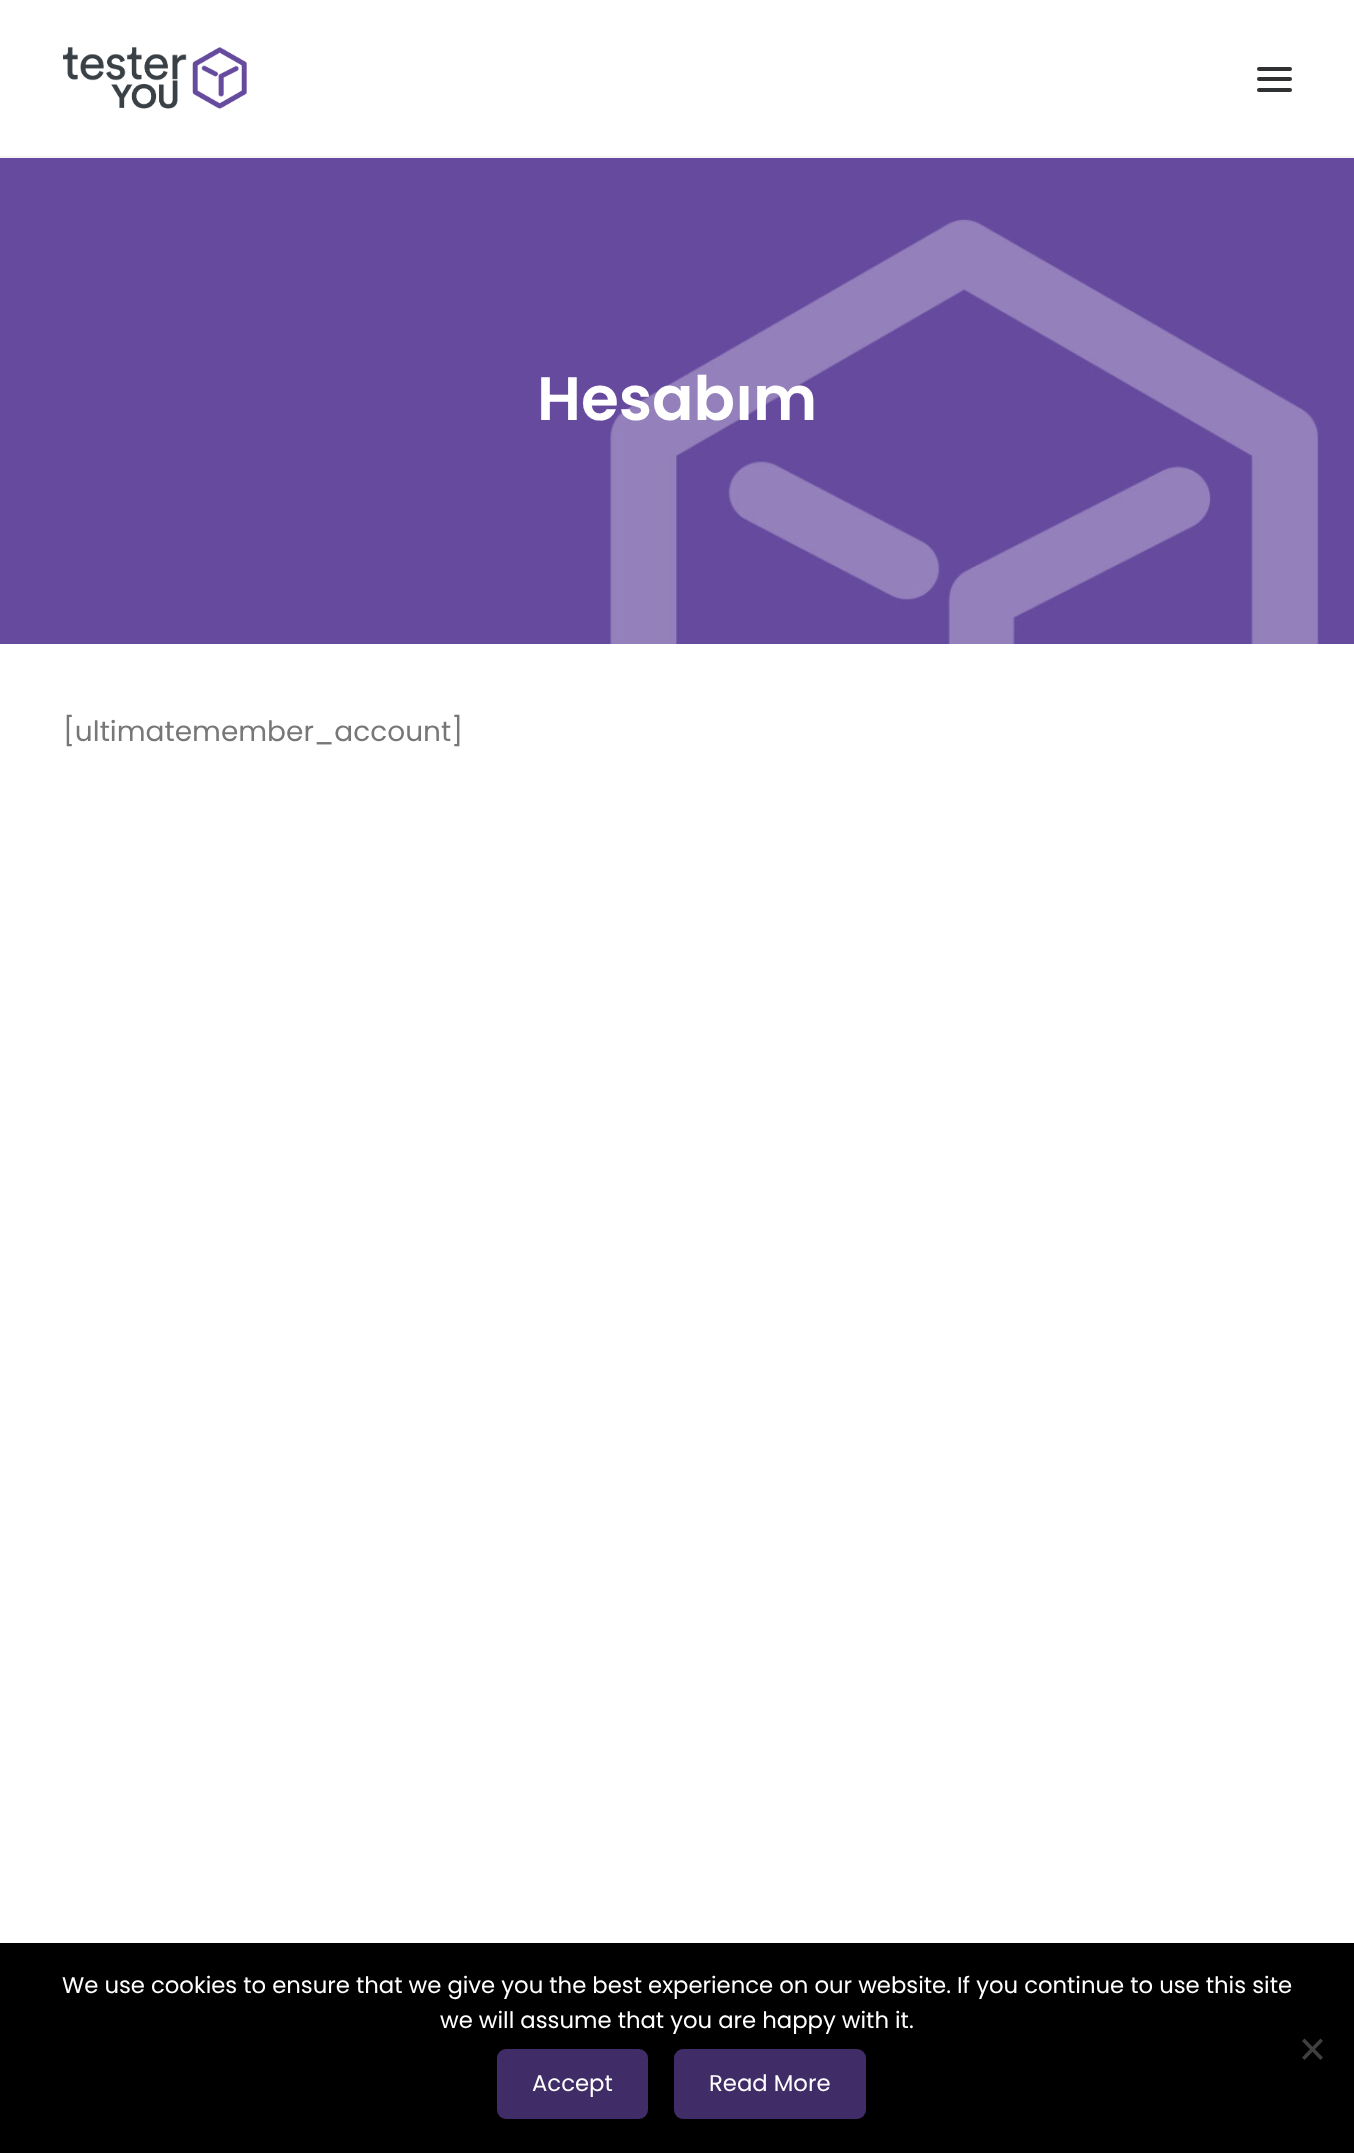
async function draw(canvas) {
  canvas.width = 1354
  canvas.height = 2153
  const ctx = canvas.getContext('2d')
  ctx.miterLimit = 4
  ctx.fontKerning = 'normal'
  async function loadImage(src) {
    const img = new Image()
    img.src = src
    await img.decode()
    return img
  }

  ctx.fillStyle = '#fff'
  ctx.fillRect(0, 0, 1354, 2153)
  ctx.fillStyle = '#f5f5f5'
  ctx.fillRect(0, 156, 1354, 2)
  ctx.drawImage(await loadImage('image0.png'), 63, 47, 184, 62)
  ctx.fillStyle = '#303133'
  ctx.beginPath()
  ctx.roundRect(1257, 77, 35, 4, 2)
  ctx.fill()
  ctx.beginPath()
  ctx.roundRect(1257, 67, 35, 4, 2)
  ctx.fill()
  ctx.beginPath()
  ctx.roundRect(1257, 88, 35, 4, 2)
  ctx.fill()
  ctx.drawImage(await loadImage('image1.png'), 0, 158, 1354, 486)
  ctx.font = '600 61.25px Poppins'
  ctx.fillStyle = '#fff'
  ctx.fillText('Hesabım', 537, 420)
  ctx.font = '28px Poppins'
  ctx.fillStyle = '#777'
  ctx.fillText('[ultimatemember_account]', 63, 741)
  ctx.fillStyle = '#000'
  ctx.fillRect(0, 1943, 1354, 210)
  ctx.font = '22.75px Poppins'
  ctx.fillStyle = '#fff'
  ctx.fillText('We use cookies to ensure that we give you the best experience on our website. If you continue to use this site', 62, 1993)
  ctx.fillText('we will assume that you are happy with it.', 440, 2028)
  ctx.fillStyle = '#404040'
  ctx.beginPath()
  ctx.moveTo(1320.5, 2038.5)
  ctx.lineTo(1323, 2041)
  ctx.lineTo(1304.5, 2060)
  ctx.lineTo(1302, 2057.5)
  ctx.closePath()
  ctx.fill()
  ctx.beginPath()
  ctx.moveTo(1302, 2041)
  ctx.lineTo(1304.5, 2038.5)
  ctx.lineTo(1323, 2057.5)
  ctx.lineTo(1320.5, 2060)
  ctx.closePath()
  ctx.fill()
  ctx.fillStyle = '#402c67'
  ctx.beginPath()
  ctx.roundRect(497, 2049, 151, 70, 9)
  ctx.fill()
  ctx.fillStyle = '#fff'
  ctx.fillText('Accept', 532, 2091)
  ctx.fillStyle = '#402c67'
  ctx.beginPath()
  ctx.roundRect(674, 2049, 192, 70, 9)
  ctx.fill()
  ctx.fillStyle = '#fff'
  ctx.fillText('Read More', 709, 2091)
}

draw(document.querySelector('canvas'))
